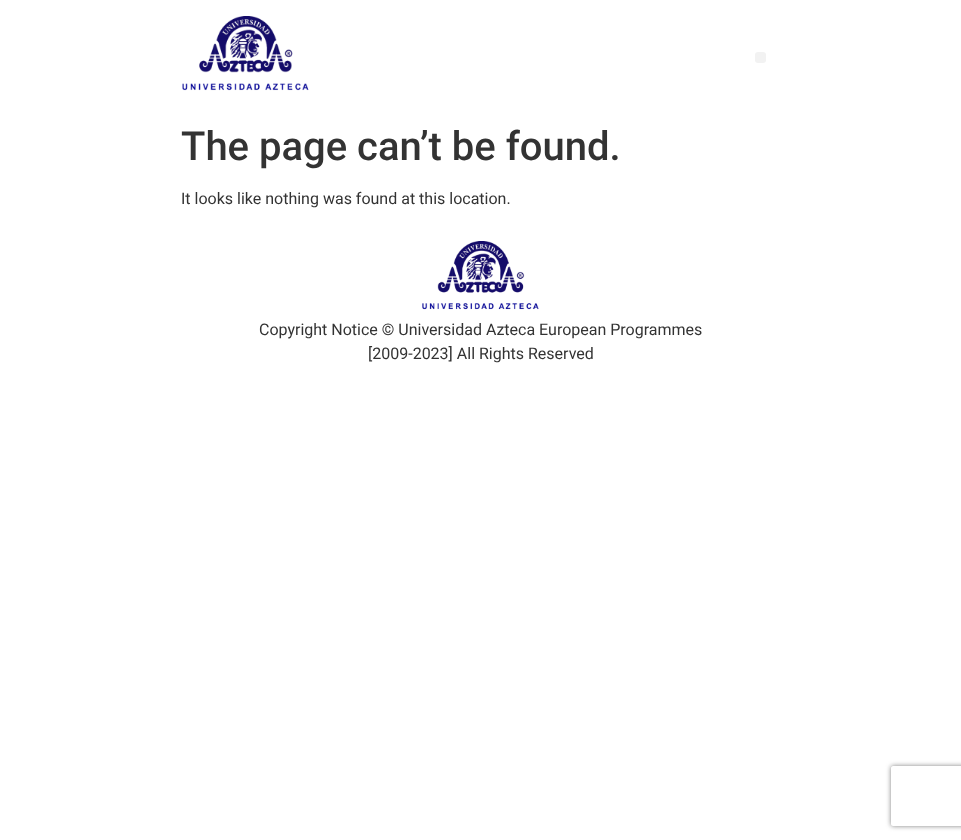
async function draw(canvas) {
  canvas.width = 961
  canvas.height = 840
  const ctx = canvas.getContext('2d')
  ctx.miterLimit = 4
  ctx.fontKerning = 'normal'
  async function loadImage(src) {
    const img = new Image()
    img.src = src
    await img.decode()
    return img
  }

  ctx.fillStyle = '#fff'
  ctx.fillRect(0, 0, 961, 840)
  ctx.drawImage(await loadImage('image0.png'), 182, 16, 127, 75)
  ctx.fillStyle = '#f2f2f2'
  ctx.beginPath()
  ctx.roundRect(755, 52, 11, 11, 3)
  ctx.fill()
  ctx.font = '500 40px Roboto'
  ctx.fillStyle = '#333'
  ctx.fillText('The page can’t be found.', 181, 160)
  ctx.font = '16px Roboto'
  ctx.fillText('It looks like nothing was found at this location.', 181, 204)
  ctx.drawImage(await loadImage('image1.png'), 422, 241, 117, 69)
  ctx.fillText('Copyright Notice © Universidad Azteca European Programmes', 259, 335)
  ctx.fillText('[2009-2023] All Rights Reserved', 368, 359)
  ctx.save()
  ctx.beginPath()
  ctx.moveTo(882, 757)
  ctx.lineTo(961, 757)
  ctx.lineTo(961, 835)
  ctx.lineTo(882, 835)
  ctx.closePath()
  ctx.moveTo(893, 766)
  ctx.lineTo(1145, 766)
  ctx.bezierCurveTo(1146, 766, 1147, 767, 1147, 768)
  ctx.lineTo(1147, 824)
  ctx.bezierCurveTo(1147, 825, 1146, 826, 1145, 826)
  ctx.lineTo(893, 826)
  ctx.bezierCurveTo(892, 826, 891, 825, 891, 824)
  ctx.lineTo(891, 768)
  ctx.bezierCurveTo(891, 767, 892, 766, 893, 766)
  ctx.closePath()
  ctx.clip('evenodd')
  ctx.fillStyle = '#808080'
  ctx.filter = 'blur(2.5px)'
  ctx.beginPath()
  ctx.roundRect(891, 766, 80, 60, 2)
  ctx.fill()
  ctx.filter = 'none'
  ctx.restore()
}

draw(document.querySelector('canvas'))
